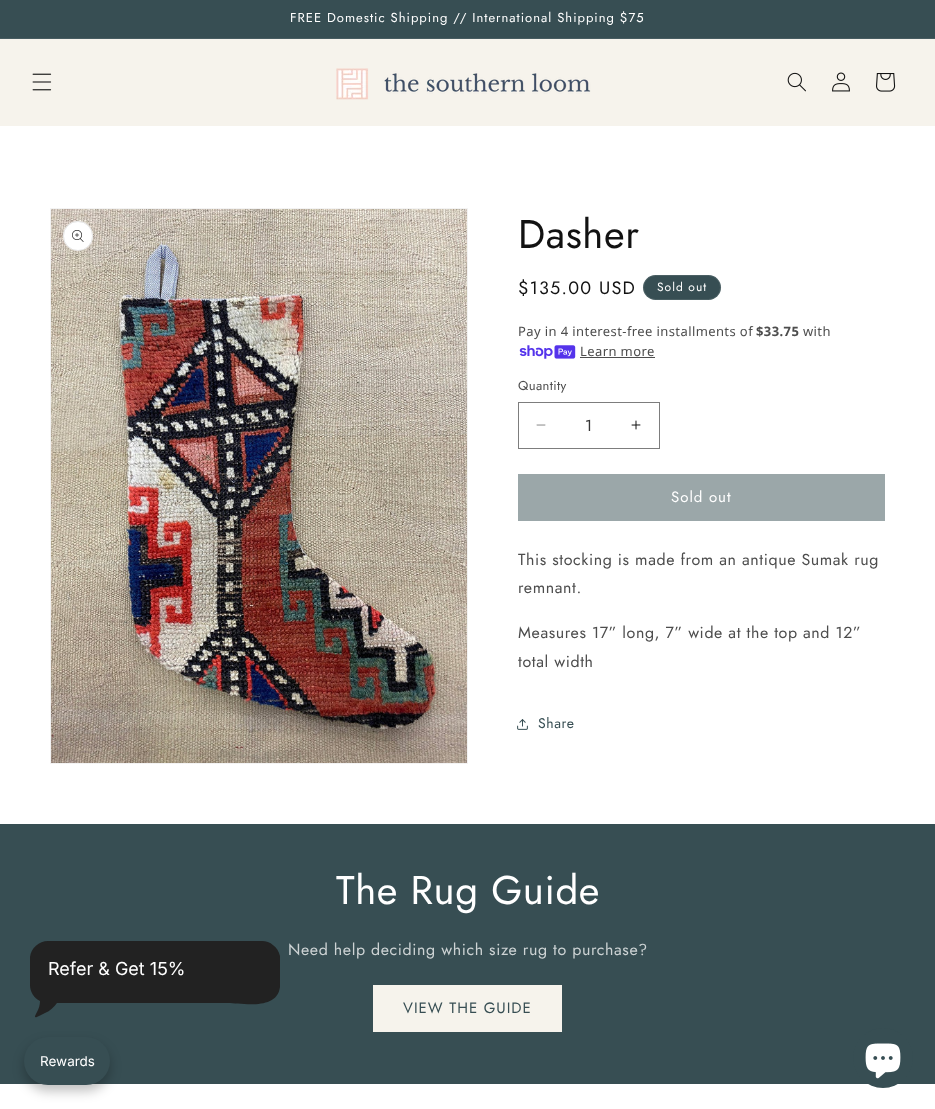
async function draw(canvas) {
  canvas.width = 935
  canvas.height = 1109
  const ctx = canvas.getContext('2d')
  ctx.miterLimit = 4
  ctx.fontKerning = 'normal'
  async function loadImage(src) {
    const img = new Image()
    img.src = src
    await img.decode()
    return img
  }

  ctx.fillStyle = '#fff'
  ctx.fillRect(0, 0, 935, 1109)
  ctx.fillStyle = '#374e53'
  ctx.fillRect(0, 0, 935, 38)
  ctx.fillStyle = '#475c61'
  ctx.fillRect(0, 38, 935, 1)
  ctx.letterSpacing = '1px'
  ctx.font = '13px Jost'
  ctx.fillStyle = '#fff'
  ctx.fillText('FREE Domestic Shipping // International Shipping $75', 290, 22)
  ctx.fillStyle = '#f6f3ec'
  ctx.fillRect(0, 39, 935, 87)
  ctx.drawImage(await loadImage('image0.png'), 32, 73, 20, 18)
  ctx.drawImage(await loadImage('image1.png'), 336, 68, 255, 32)
  ctx.drawImage(await loadImage('image2.png'), 787, 72, 19, 20)
  ctx.drawImage(await loadImage('image3.png'), 832, 72, 18, 20)
  ctx.drawImage(await loadImage('image4.png'), 876, 73, 20, 19)
  ctx.fillStyle = '#374e53'
  ctx.fillRect(0, 824, 935, 260)
  ctx.fillStyle = '#222'
  ctx.beginPath()
  ctx.moveTo(30, 985)
  ctx.lineTo(30, 957)
  ctx.bezierCurveTo(31, 948, 39, 941, 48, 941)
  ctx.lineTo(262, 941)
  ctx.bezierCurveTo(270, 941, 278, 947, 280, 956)
  ctx.lineTo(280, 987)
  ctx.bezierCurveTo(277, 1011, 241, 1003, 228, 1003)
  ctx.lineTo(57, 1003)
  ctx.bezierCurveTo(54, 1007, 50, 1011, 45, 1013)
  ctx.lineTo(39, 1016)
  ctx.bezierCurveTo(33, 1019, 35, 1016, 37, 1012)
  ctx.bezierCurveTo(39, 1008, 40, 1005, 40, 1001)
  ctx.bezierCurveTo(34, 998, 30, 992, 30, 985)
  ctx.closePath()
  ctx.fill()
  ctx.letterSpacing = '0px'
  ctx.font = '18px Inter'
  ctx.fillStyle = '#fff'
  ctx.fillText('Refer & Get 15%', 48, 975)
  ctx.fillStyle = '#00000040'
  ctx.filter = 'blur(6px)'
  ctx.beginPath()
  ctx.roundRect(24, 1043, 86, 48, 24)
  ctx.fill()
  ctx.filter = 'none'
  ctx.fillStyle = '#374e53'
  ctx.beginPath()
  ctx.roundRect(24, 1037, 86, 48, 24)
  ctx.fill()
  ctx.font = '13.5px Inter'
  ctx.fillStyle = '#fff'
  ctx.fillText('Rewards', 40, 1066)
  ctx.strokeStyle = '#f3f3f3'
  ctx.strokeRect(50.5, 208.5, 417, 555)
  ctx.drawImage(await loadImage('image5.png'), 51, 209, 416, 554)
  ctx.beginPath()
  ctx.arc(78, 236, 15, 0, 2 * Math.PI)
  ctx.fill()
  ctx.beginPath()
  ctx.arc(78, 236, 14.5, 0, 2 * Math.PI)
  ctx.strokeStyle = '#1212121a'
  ctx.stroke()
  ctx.drawImage(await loadImage('image6.png'), 72, 230, 12, 12)
  ctx.letterSpacing = '0.6px'
  ctx.font = '40px Jost'
  ctx.fillStyle = '#121212'
  ctx.fillText('Dasher', 518, 248)
  ctx.letterSpacing = '1.25px'
  ctx.font = '18px Jost'
  ctx.fillText('$135.00 USD', 518, 294)
  ctx.fillStyle = '#374e53'
  ctx.beginPath()
  ctx.roundRect(643, 275, 78, 25, 12.5)
  ctx.fill()
  ctx.beginPath()
  ctx.roundRect(643.5, 275.5, 77, 24, 12)
  ctx.strokeStyle = '#ffffff1a'
  ctx.stroke()
  ctx.letterSpacing = '1px'
  ctx.font = '12px Jost'
  ctx.fillStyle = '#fff'
  ctx.fillText('Sold out', 657, 291)
  ctx.letterSpacing = '0.4px'
  ctx.font = '13px Noto Sans'
  ctx.fillStyle = '#4d4d4d'
  ctx.fillText('Pay in 4 interest-free installments of', 518, 336)
  ctx.font = 'bold 13px Noto Sans'
  ctx.fillText('$33.75', 756, 336)
  ctx.font = '13px Noto Sans'
  ctx.fillText('with', 803, 336)
  ctx.drawImage(await loadImage('image7.png'), 519, 345, 57, 14)
  ctx.fillText('Learn more', 580, 356)
  ctx.fillRect(580, 357, 75, 1)
  ctx.font = '13px Jost'
  ctx.fillText('Quantity', 518, 390)
  ctx.drawImage(await loadImage('image8.png'), 536, 424, 10, 2)
  ctx.drawImage(await loadImage('image9.png'), 631, 420, 10, 10)
  ctx.strokeStyle = '#7d7d7d'
  ctx.strokeRect(518.5, 402.5, 141, 46)
  ctx.letterSpacing = '0px'
  ctx.font = '16px Jost'
  ctx.fillStyle = '#363636'
  ctx.fillText('1', 585, 431)
  ctx.fillStyle = '#9ba7a9'
  ctx.fillRect(518, 474, 367, 47)
  ctx.letterSpacing = '1px'
  ctx.font = '15px Jost'
  ctx.fillStyle = '#fff'
  ctx.fillText('Sold out', 671, 502)
  ctx.letterSpacing = '0.6px'
  ctx.font = '16px Jost'
  ctx.fillStyle = '#4d4d4d'
  ctx.fillText('This stocking is made from an antique Sumak rug', 518, 565)
  ctx.fillText('remnant.', 518, 593)
  ctx.fillText('Measures 17” long, 7” wide at the top and 12”', 518, 638)
  ctx.fillText('total width', 518, 667)
  ctx.drawImage(await loadImage('image10.png'), 517, 719, 11, 11)
  ctx.font = '14px Jost'
  ctx.fillStyle = '#374e53'
  ctx.fillText('Share', 538, 728)
  ctx.font = '40px Jost'
  ctx.fillStyle = '#fff'
  ctx.fillText('The Rug Guide', 336, 904)
  ctx.font = '16px Jost'
  ctx.fillStyle = '#cdd3d4'
  ctx.fillText('Need help deciding which size rug to purchase?', 288, 955)
  ctx.fillStyle = '#f6f3ec'
  ctx.fillRect(373, 985, 189, 47)
  ctx.letterSpacing = '1px'
  ctx.font = '15px Jost'
  ctx.fillStyle = '#374e53'
  ctx.fillText('VIEW THE GUIDE', 403, 1013)
  ctx.beginPath()
  ctx.arc(883, 1058, 30, 0, 2 * Math.PI)
  ctx.fill()
  ctx.drawImage(await loadImage('image11.png'), 865, 1043, 36, 36)
}

draw(document.querySelector('canvas'))
